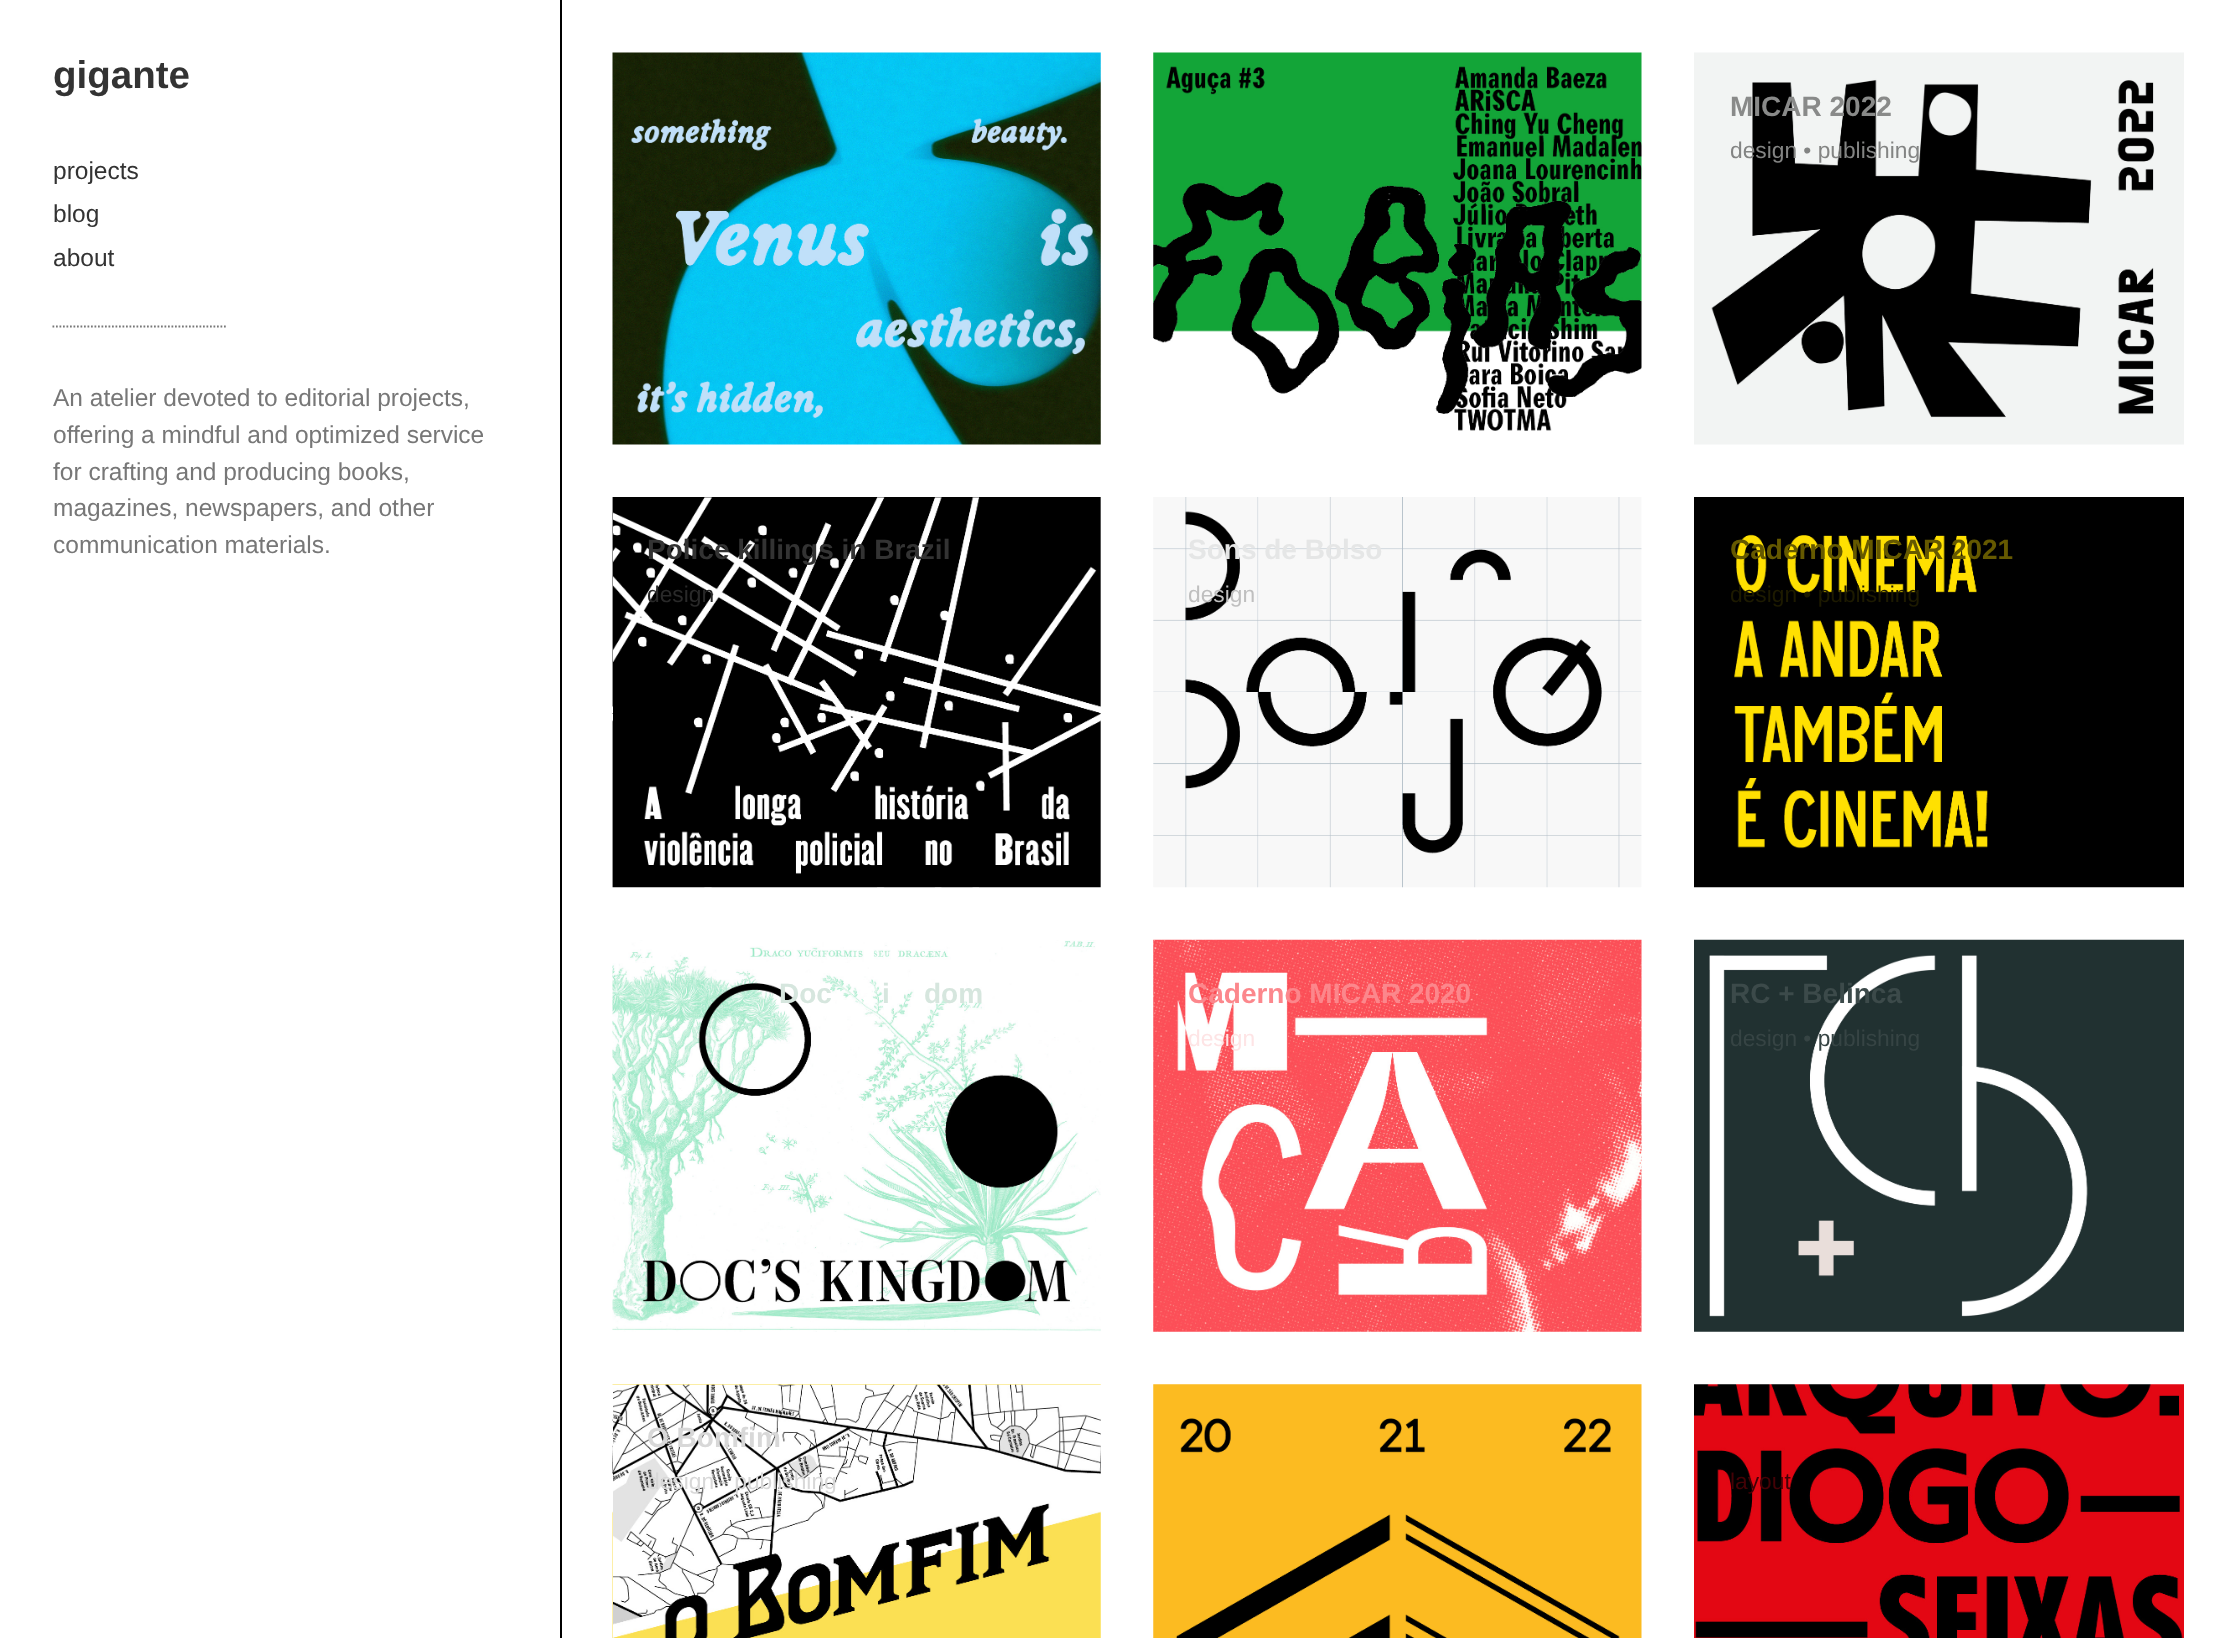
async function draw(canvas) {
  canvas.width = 2235
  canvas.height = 1638
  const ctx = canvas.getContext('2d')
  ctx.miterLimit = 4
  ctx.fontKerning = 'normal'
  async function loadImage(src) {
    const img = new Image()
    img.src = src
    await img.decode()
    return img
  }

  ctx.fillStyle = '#fff'
  ctx.fillRect(0, 0, 2235, 1638)
  ctx.font = 'bold 38.5px Liberation Sans'
  ctx.fillStyle = '#333'
  ctx.fillText('gigante', 53, 88)
  ctx.font = '24.5px Liberation Sans'
  ctx.fillText('projects', 53, 179)
  ctx.fillText('blog', 53, 222)
  ctx.fillText('about', 53, 266)
  ctx.beginPath()
  ctx.moveTo(52.5, 326.5)
  ctx.lineTo(227.5, 326.5)
  ctx.strokeStyle = '#777'
  ctx.lineWidth = 1.8
  ctx.setLineDash([1.75, 1.75])
  ctx.stroke()
  ctx.fillStyle = '#000'
  ctx.fillRect(560, 0, 2, 1638)
  ctx.drawImage(await loadImage('image0.png'), 612, 52, 489, 393)
  ctx.drawImage(await loadImage('image1.png'), 1153, 52, 489, 379)
  ctx.drawImage(await loadImage('image2.png'), 1694, 52, 490, 393)
  ctx.font = 'bold 28px Liberation Sans'
  ctx.fillStyle = '#898a89'
  ctx.fillText('MICAR 2022', 1730, 116)
  ctx.font = '22.75px Liberation Sans'
  ctx.fillStyle = '#838483'
  ctx.fillText('design • publishing', 1730, 158)
  ctx.drawImage(await loadImage('image3.png'), 612, 497, 489, 391)
  ctx.font = 'bold 28px Liberation Sans'
  ctx.fillStyle = '#333'
  ctx.fillText('Police killings in Brazil', 647, 559)
  ctx.font = '22.75px Liberation Sans'
  ctx.fillStyle = '#292929'
  ctx.fillText('design', 647, 602)
  ctx.drawImage(await loadImage('image4.png'), 1153, 497, 489, 391)
  ctx.font = 'bold 28px Liberation Sans'
  ctx.fillStyle = '#e5e6e6'
  ctx.fillText('Sons de Bolso', 1188, 559)
  ctx.font = '22.75px Liberation Sans'
  ctx.fillStyle = '#bfbfbf'
  ctx.fillText('design', 1188, 602)
  ctx.drawImage(await loadImage('image5.png'), 1694, 497, 490, 391)
  ctx.font = 'bold 28px Liberation Sans'
  ctx.fillStyle = '#655900'
  ctx.fillText('Caderno MICAR 2021', 1730, 559)
  ctx.font = '22.75px Liberation Sans'
  ctx.fillStyle = '#1d1a00'
  ctx.fillText('design • publishing', 1730, 602)
  ctx.drawImage(await loadImage('image6.png'), 612, 940, 489, 392)
  ctx.font = 'bold 28px Liberation Sans'
  ctx.fillStyle = '#d6e6de'
  ctx.fillText('Doc', 779, 1003)
  ctx.fillText('i', 882, 1003)
  ctx.fillText('dom', 924, 1003)
  ctx.drawImage(await loadImage('image7.png'), 1153, 939, 489, 393)
  ctx.fillStyle = '#fc878c'
  ctx.fillText('Caderno MICAR 2020', 1188, 1003)
  ctx.font = '22.75px Liberation Sans'
  ctx.fillStyle = '#fee4e5'
  ctx.fillText('design', 1188, 1046)
  ctx.drawImage(await loadImage('image8.png'), 1694, 939, 490, 393)
  ctx.font = 'bold 28px Liberation Sans'
  ctx.fillStyle = '#3c4a4a'
  ctx.fillText('RC + Belinca', 1730, 1003)
  ctx.font = '22.75px Liberation Sans'
  ctx.fillStyle = '#364444'
  ctx.fillText('design • publishing', 1730, 1046)
  ctx.drawImage(await loadImage('image9.png'), 612, 1384, 489, 254)
  ctx.font = 'bold 28px Liberation Sans'
  ctx.fillStyle = '#d8d8d8'
  ctx.fillText('O Bomfim', 647, 1447)
  ctx.font = '22.75px Liberation Sans'
  ctx.fillText('design · publishing', 647, 1489)
  ctx.drawImage(await loadImage('image10.png'), 1153, 1384, 489, 254)
  ctx.drawImage(await loadImage('image11.png'), 1694, 1384, 490, 254)
  ctx.fillStyle = '#430206'
  ctx.fillText('layout', 1730, 1489)
  ctx.font = '24.5px Liberation Sans'
  ctx.fillStyle = '#777'
  ctx.fillText('An atelier devoted to editorial projects,', 53, 406)
  ctx.fillText('offering a mindful and optimized service', 53, 443)
  ctx.fillText('for crafting and producing books,', 53, 480)
  ctx.fillText('magazines, newspapers, and other', 53, 516)
  ctx.fillText('communication materials.', 53, 553)
}

draw(document.querySelector('canvas'))
